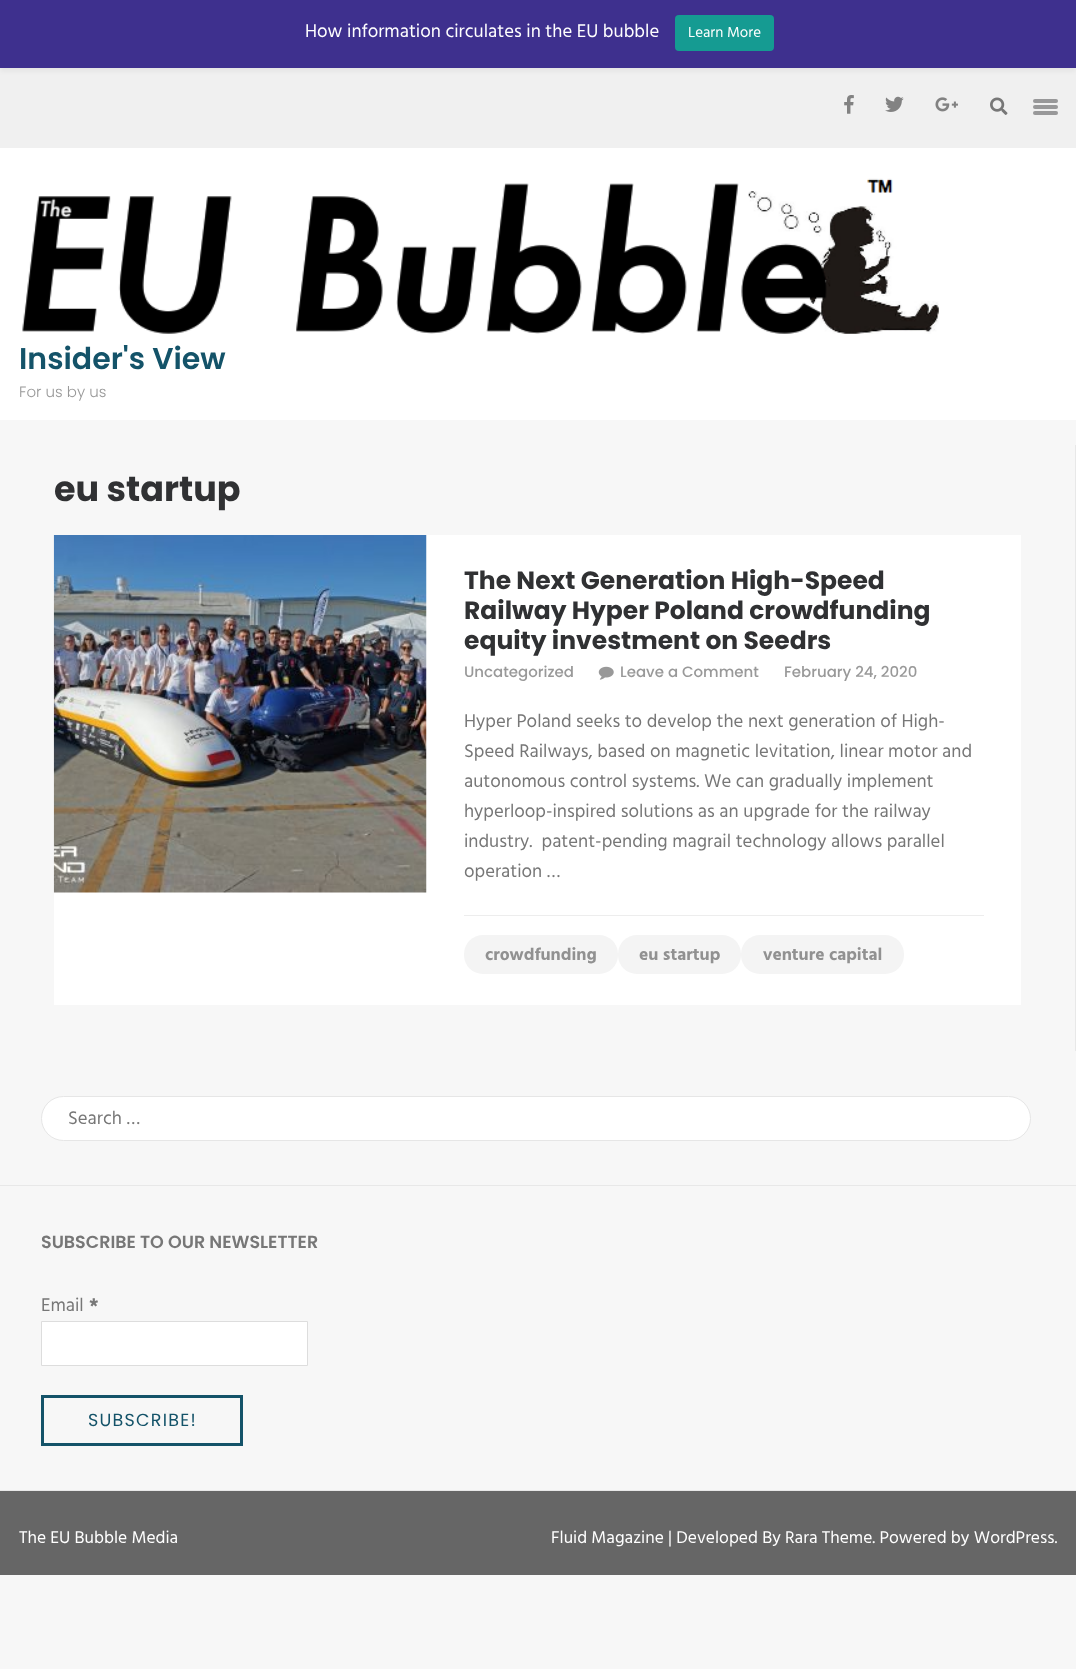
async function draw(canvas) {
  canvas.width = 1076
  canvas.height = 1669
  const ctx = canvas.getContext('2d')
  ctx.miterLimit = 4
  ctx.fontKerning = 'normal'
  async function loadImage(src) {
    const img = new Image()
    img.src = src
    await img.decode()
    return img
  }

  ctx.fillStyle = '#f7f7f7'
  ctx.fillRect(0, 0, 1076, 1669)
  ctx.fillStyle = '#f0f0f0'
  ctx.fillRect(0, 68, 1076, 80)
  ctx.fillStyle = '#0000000d'
  ctx.filter = 'blur(2.5px)'
  ctx.beginPath()
  ctx.rect(0, 4, 1076, 67)
  ctx.fill()
  ctx.filter = 'none'
  ctx.fillStyle = '#3e308e'
  ctx.fillRect(0, 0, 1076, 68)
  ctx.font = '18.75px Hind'
  ctx.fillStyle = '#fff'
  ctx.fillText('How information circulates in the EU bubble', 305, 37)
  ctx.fillStyle = '#159b92'
  ctx.beginPath()
  ctx.roundRect(675, 15, 99, 36, 4)
  ctx.fill()
  ctx.font = '15px Hind'
  ctx.fillStyle = '#fff'
  ctx.fillText('Learn More', 688, 37)
  ctx.drawImage(await loadImage('image0.png'), 844, 95, 10, 19)
  ctx.drawImage(await loadImage('image1.png'), 885, 96, 19, 16)
  ctx.drawImage(await loadImage('image2.png'), 935, 97, 23, 15)
  ctx.drawImage(await loadImage('image3.png'), 990, 97, 18, 18)
  ctx.fillStyle = '#989899'
  ctx.beginPath()
  ctx.roundRect(1033, 99, 25, 4, 2)
  ctx.fill()
  ctx.beginPath()
  ctx.roundRect(1033, 105, 25, 4, 2)
  ctx.fill()
  ctx.beginPath()
  ctx.roundRect(1033, 111, 25, 4, 2)
  ctx.fill()
  ctx.fillStyle = '#fff'
  ctx.fillRect(0, 148, 1076, 272)
  ctx.drawImage(await loadImage('image4.png'), 22, 178, 917, 156)
  ctx.font = '600 30px Poppins'
  ctx.fillStyle = '#145369'
  ctx.fillText('Insider\'s View', 19, 369)
  ctx.font = '300 15px Poppins'
  ctx.fillStyle = '#999'
  ctx.fillText('For us by us', 19, 397)
  ctx.fillStyle = '#e8e8e8'
  ctx.fillRect(1075, 445, 1, 606)
  ctx.font = 'bold 35px Poppins'
  ctx.fillStyle = '#303133'
  ctx.fillText('eu startup', 54, 501)
  ctx.fillStyle = '#fff'
  ctx.fillRect(54, 535, 967, 470)
  ctx.drawImage(await loadImage('image5.png'), 53, 535, 374, 358)
  ctx.font = 'bold 25px Poppins'
  ctx.fillStyle = '#303133'
  ctx.fillText('The Next Generation High-Speed', 464, 589)
  ctx.fillText('Railway Hyper Poland crowdfunding', 464, 619)
  ctx.fillText('equity investment on Seedrs', 464, 649)
  ctx.font = '500 15px Poppins'
  ctx.fillStyle = '#999'
  ctx.fillText('Uncategorized', 464, 677)
  ctx.drawImage(await loadImage('image6.png'), 598, 666, 16, 14)
  ctx.fillText('Leave a Comment', 620, 677)
  ctx.fillText('February 24, 2020', 784, 677)
  ctx.font = '18.75px Hind'
  ctx.fillStyle = '#777'
  ctx.fillText('Hyper Poland seeks to develop the next generation of High-', 464, 727)
  ctx.fillText('Speed Railways, based on magnetic levitation, linear motor and', 464, 757)
  ctx.fillText('autonomous control systems. We can gradually implement', 464, 787)
  ctx.fillText('hyperloop-inspired solutions as an upgrade for the railway', 464, 817)
  ctx.fillText('industry.  patent-pending magrail technology allows parallel', 464, 847)
  ctx.fillText('operation …', 464, 877)
  ctx.fillStyle = '#ededed'
  ctx.fillRect(464, 915, 520, 1)
  ctx.fillStyle = '#f4f4f4'
  ctx.beginPath()
  ctx.roundRect(464, 935, 154, 39, 19)
  ctx.fill()
  ctx.font = 'bold 17.5px Hind'
  ctx.fillStyle = '#919191'
  ctx.fillText('crowdfunding', 485, 960)
  ctx.fillStyle = '#f4f4f4'
  ctx.beginPath()
  ctx.roundRect(618, 935, 123, 39, 19)
  ctx.fill()
  ctx.fillStyle = '#919191'
  ctx.fillText('eu startup', 639, 960)
  ctx.fillStyle = '#f4f4f4'
  ctx.beginPath()
  ctx.roundRect(741, 935, 163, 39, 19)
  ctx.fill()
  ctx.fillStyle = '#919191'
  ctx.fillText('venture capital', 763, 960)
  ctx.fillStyle = '#e8e8e8'
  ctx.fillRect(0, 1185, 1076, 1)
  ctx.fillStyle = '#fff'
  ctx.beginPath()
  ctx.roundRect(41.5, 1096.5, 989, 44, 22)
  ctx.fill()
  ctx.strokeStyle = '#e6e6e6'
  ctx.stroke()
  ctx.font = '18.75px Hind'
  ctx.fillStyle = '#777'
  ctx.fillText('Search …', 68, 1124)
  ctx.fillStyle = '#e8e8e8'
  ctx.fillRect(0, 1490, 1076, 1)
  ctx.font = '600 17.5px Poppins'
  ctx.fillStyle = '#777'
  ctx.fillText('SUBSCRIBE TO OUR NEWSLETTER', 41, 1248)
  ctx.font = '18.75px Hind'
  ctx.fillText('Email', 41, 1311)
  ctx.font = 'bold 18.75px Hind'
  ctx.fillText('*', 89, 1311)
  ctx.fillStyle = '#fff'
  ctx.beginPath()
  ctx.rect(41.5, 1321.5, 266, 44)
  ctx.fill()
  ctx.strokeStyle = '#ddd'
  ctx.stroke()
  ctx.strokeStyle = '#145369'
  ctx.lineWidth = 3
  ctx.strokeRect(42.5, 1396.5, 199, 48)
  ctx.letterSpacing = '1.25px'
  ctx.font = '17.5px Poppins'
  ctx.fillStyle = '#145369'
  ctx.fillText('SUBSCRIBE!', 88, 1426)
  ctx.fillStyle = '#666'
  ctx.fillRect(0, 1491, 1076, 84)
  ctx.letterSpacing = '0px'
  ctx.font = '17.5px Hind'
  ctx.fillStyle = '#fff'
  ctx.fillText('The EU Bubble Media', 19, 1543)
  ctx.fillText('Fluid Magazine | Developed By Rara Theme. Powered by WordPress.', 551, 1543)
}

draw(document.querySelector('canvas'))
